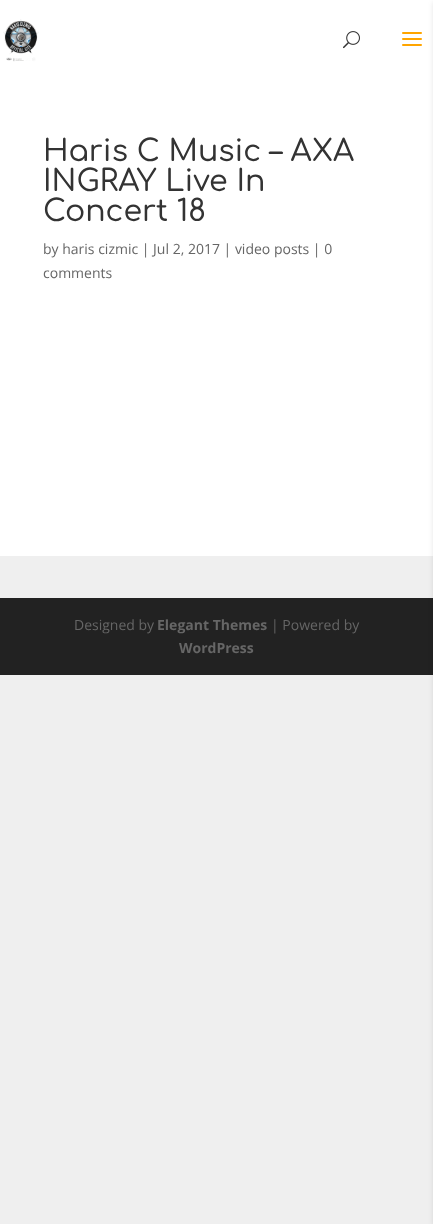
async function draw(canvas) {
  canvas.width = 433
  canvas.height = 1224
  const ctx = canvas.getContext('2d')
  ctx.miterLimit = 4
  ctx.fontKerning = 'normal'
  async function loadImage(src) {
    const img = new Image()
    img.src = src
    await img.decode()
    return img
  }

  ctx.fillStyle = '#efefef'
  ctx.fillRect(0, 0, 433, 1224)
  ctx.fillStyle = '#fff'
  ctx.fillRect(0, 0, 433, 556)
  ctx.drawImage(await loadImage('image0.png'), 3, 19, 36, 43)
  ctx.drawImage(await loadImage('image1.png'), 343, 31, 17, 18)
  ctx.drawImage(await loadImage('image2.png'), 402, 32, 20, 14)
  ctx.fillStyle = '#222'
  ctx.fillRect(0, 598, 433, 77)
  ctx.fillStyle = '#0000001a'
  ctx.filter = 'blur(2.5px)'
  ctx.beginPath()
  ctx.rect(433, 2, 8, 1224)
  ctx.fill()
  ctx.filter = 'none'
  ctx.font = '500 30px Comfortaa'
  ctx.fillStyle = '#333'
  ctx.fillText('Haris C Music – AXA', 43, 161)
  ctx.fillText('INGRAY Live In', 43, 191)
  ctx.fillText('Concert 18', 43, 221)
  ctx.font = '14px Open Sans'
  ctx.fillStyle = '#666'
  ctx.fillText('by haris cizmic | Jul 2, 2017 | video posts | 0', 43, 254)
  ctx.fillText('comments', 43, 278)
  ctx.fillText('Designed by', 74, 630)
  ctx.font = 'bold 14px Open Sans'
  ctx.fillText('Elegant Themes', 157, 630)
  ctx.font = '14px Open Sans'
  ctx.fillText('| Powered by', 271, 630)
  ctx.font = 'bold 14px Open Sans'
  ctx.fillText('WordPress', 179, 653)
}

draw(document.querySelector('canvas'))
